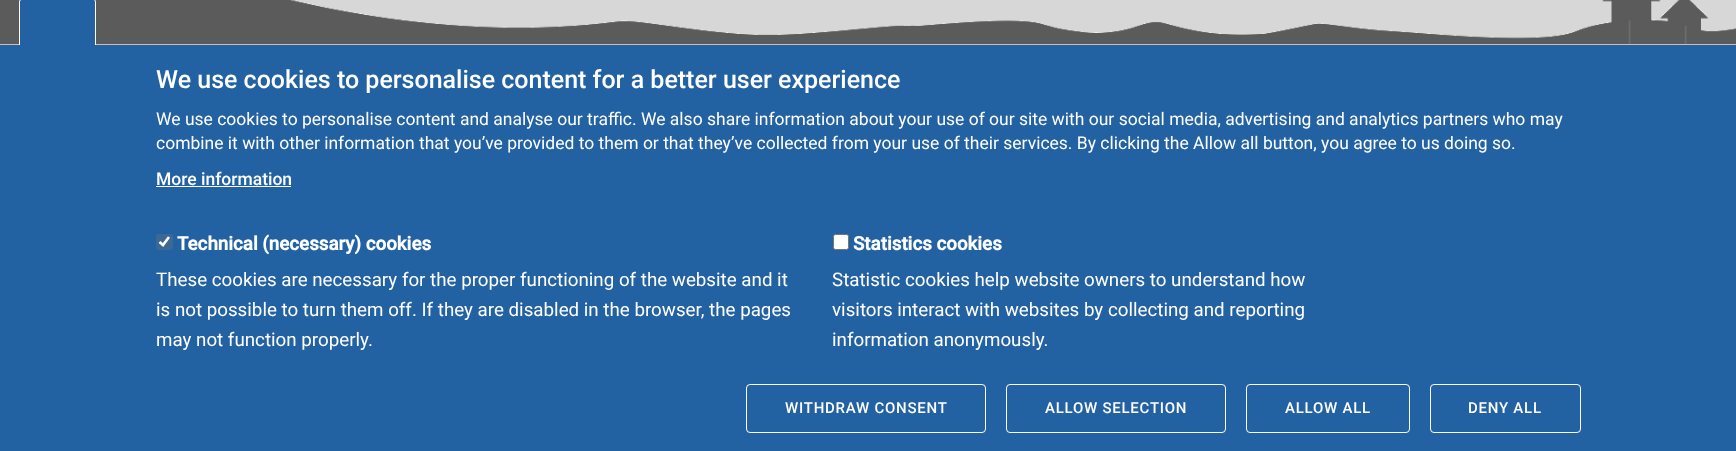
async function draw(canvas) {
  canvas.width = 1736
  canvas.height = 451
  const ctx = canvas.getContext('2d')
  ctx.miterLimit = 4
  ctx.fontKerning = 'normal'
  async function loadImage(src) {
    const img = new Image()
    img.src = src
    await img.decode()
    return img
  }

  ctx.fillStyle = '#d7d7d7'
  ctx.fillRect(0, 0, 1736, 451)
  ctx.drawImage(await loadImage('image0.png'), 0, 0, 1736, 44)
  ctx.fillStyle = '#2362a2'
  ctx.fillRect(0, 45, 1736, 406)
  ctx.fillStyle = '#c2c2c2'
  ctx.fillRect(0, 44, 1736, 1)
  ctx.fillStyle = '#2362a2'
  ctx.beginPath()
  ctx.moveTo(24, -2)
  ctx.lineTo(91, -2)
  ctx.bezierCurveTo(94, -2, 96, 0, 96, 3)
  ctx.lineTo(96, 45)
  ctx.lineTo(19, 45)
  ctx.lineTo(19, 3)
  ctx.bezierCurveTo(19, 0, 21, -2, 24, -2)
  ctx.closePath()
  ctx.fill()
  ctx.fillStyle = '#fff'
  ctx.beginPath()
  ctx.moveTo(24, -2)
  ctx.lineTo(91, -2)
  ctx.bezierCurveTo(94, -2, 96, 0, 96, 2)
  ctx.lineTo(96, 45)
  ctx.lineTo(19, 45)
  ctx.lineTo(19, 2)
  ctx.bezierCurveTo(19, 0, 21, -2, 24, -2)
  ctx.closePath()
  ctx.moveTo(24, -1)
  ctx.lineTo(91, -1)
  ctx.bezierCurveTo(93, -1, 95, 0, 95, 2)
  ctx.lineTo(95, 45)
  ctx.lineTo(20, 45)
  ctx.lineTo(20, 2)
  ctx.bezierCurveTo(20, 0, 22, -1, 24, -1)
  ctx.closePath()
  ctx.fill('evenodd')
  ctx.font = '500 25px Roboto'
  ctx.fillText('We use cookies to personalise content for a better user experience', 156, 88)
  ctx.font = '17.5px Roboto'
  ctx.fillText('We use cookies to personalise content and analyse our traffic. We also share information about your use of our site with our social media, advertising and analytics partners who may', 156, 125)
  ctx.fillText('combine it with other information that you’ve provided to them or that they’ve collected from your use of their services. By clicking the Allow all button, you agree to us doing so.', 156, 149)
  ctx.font = '500 17.5px Roboto'
  ctx.fillText('More information', 156, 185)
  ctx.fillRect(156, 186, 135, 1)
  ctx.fillStyle = '#3c6895'
  ctx.beginPath()
  ctx.roundRect(156, 234, 17, 16, 2.5)
  ctx.fill()
  ctx.beginPath()
  ctx.moveTo(159.5, 242)
  ctx.lineTo(163, 245)
  ctx.lineTo(169, 237)
  ctx.strokeStyle = '#fff'
  ctx.lineWidth = 2.6
  ctx.stroke()
  ctx.font = 'bold 18.75px Roboto'
  ctx.fillStyle = '#fff'
  ctx.fillText('Technical (necessary) cookies', 177, 250)
  ctx.font = '18.75px Roboto'
  ctx.fillText('These cookies are necessary for the proper functioning of the website and it', 156, 286)
  ctx.fillText('is not possible to turn them off. If they are disabled in the browser, the pages', 156, 316)
  ctx.fillText('may not function properly.', 156, 346)
  ctx.beginPath()
  ctx.roundRect(833.5, 234.5, 15, 15, 2)
  ctx.fill()
  ctx.strokeStyle = '#767676'
  ctx.lineWidth = 1
  ctx.stroke()
  ctx.font = 'bold 18.75px Roboto'
  ctx.fillText('Statistics cookies', 853, 250)
  ctx.font = '18.75px Roboto'
  ctx.fillText('Statistic cookies help website owners to understand how', 832, 286)
  ctx.fillText('visitors interact with websites by collecting and reporting', 832, 316)
  ctx.fillText('information anonymously.', 832, 346)
  ctx.beginPath()
  ctx.roundRect(746.5, 384.5, 239, 48, 3.5)
  ctx.strokeStyle = '#fff'
  ctx.stroke()
  ctx.letterSpacing = '0.75px'
  ctx.font = '500 15px Roboto'
  ctx.fillText('WITHDRAW CONSENT', 785, 413)
  ctx.beginPath()
  ctx.roundRect(1006.5, 384.5, 219, 48, 3.5)
  ctx.stroke()
  ctx.fillText('ALLOW SELECTION', 1045, 413)
  ctx.beginPath()
  ctx.roundRect(1246.5, 384.5, 163, 48, 3.5)
  ctx.stroke()
  ctx.fillText('ALLOW ALL', 1285, 413)
  ctx.beginPath()
  ctx.roundRect(1430.5, 384.5, 150, 48, 3.5)
  ctx.stroke()
  ctx.fillText('DENY ALL', 1468, 413)
}

draw(document.querySelector('canvas'))
